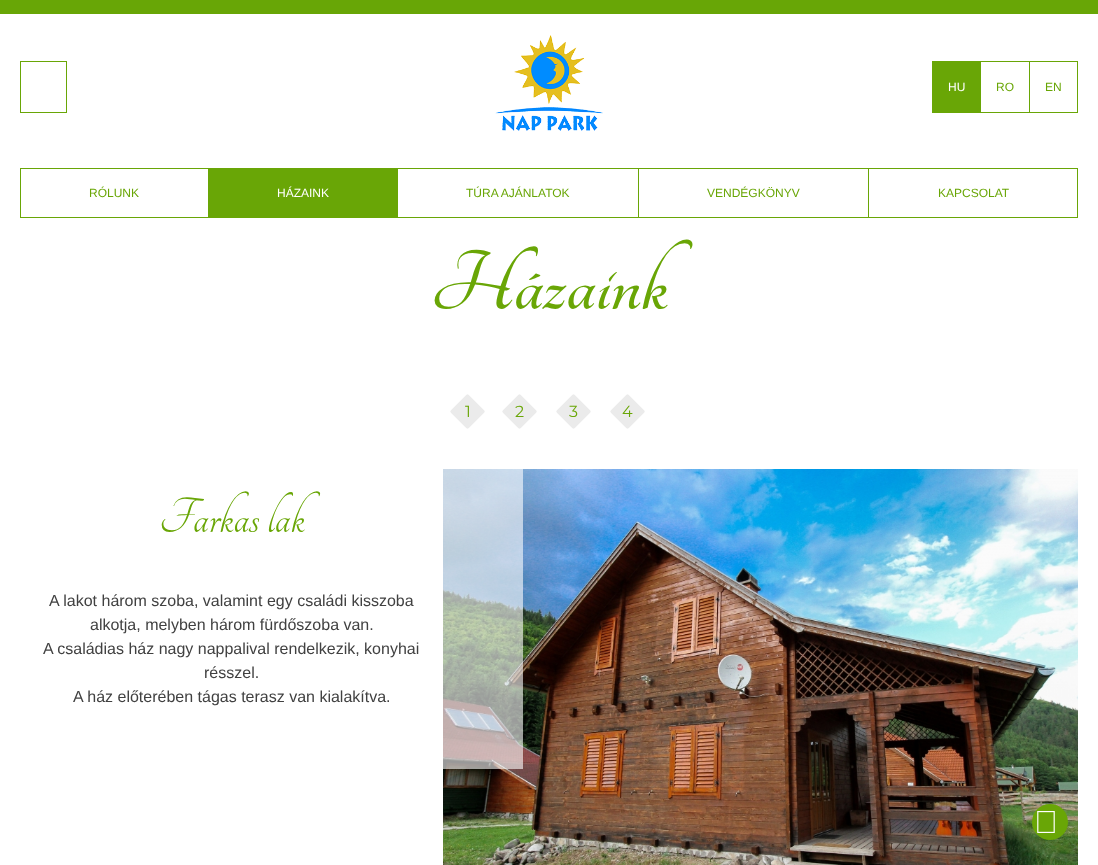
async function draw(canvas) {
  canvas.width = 1098
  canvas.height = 865
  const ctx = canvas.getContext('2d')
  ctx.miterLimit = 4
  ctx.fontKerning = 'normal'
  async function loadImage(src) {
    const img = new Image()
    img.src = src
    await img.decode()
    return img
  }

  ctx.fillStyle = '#68a606'
  ctx.fillRect(0, 0, 1098, 865)
  ctx.fillStyle = '#fff'
  ctx.fillRect(0, 14, 1098, 851)
  ctx.strokeStyle = '#69a606'
  ctx.strokeRect(20.5, 61.5, 46, 51)
  ctx.drawImage(await loadImage('image0.png'), 495, 35, 108, 96)
  ctx.fillStyle = '#69a606'
  ctx.fillRect(932, 61, 49, 52)
  ctx.font = '12px Liberation Sans'
  ctx.fillStyle = '#fff'
  ctx.fillText('HU', 948, 91)
  ctx.fillStyle = '#69a606'
  ctx.fillRect(981, 61, 97, 1)
  ctx.fillRect(1029, 61, 1, 52)
  ctx.fillRect(981, 112, 49, 1)
  ctx.fillText('RO', 996, 91)
  ctx.fillRect(1077, 61, 1, 52)
  ctx.fillRect(1030, 112, 48, 1)
  ctx.fillText('EN', 1045, 91)
  ctx.strokeRect(20.5, 168.5, 188, 49)
  ctx.fillText('RÓLUNK', 89, 197)
  ctx.fillRect(209, 168, 189, 50)
  ctx.fillStyle = '#fff'
  ctx.fillText('HÁZAINK', 277, 197)
  ctx.fillStyle = '#69a606'
  ctx.fillRect(398, 168, 680, 1)
  ctx.fillRect(638, 168, 1, 50)
  ctx.fillRect(398, 217, 241, 1)
  ctx.fillText('TÚRA AJÁNLATOK', 466, 197)
  ctx.fillRect(868, 168, 1, 50)
  ctx.fillRect(639, 217, 230, 1)
  ctx.fillText('VENDÉGKÖNYV', 707, 197)
  ctx.fillRect(1077, 168, 1, 50)
  ctx.fillRect(869, 217, 209, 1)
  ctx.fillText('KAPCSOLAT', 938, 197)
  ctx.font = 'bold 92px Tangerine'
  ctx.fillText('Házaink', 430, 309)
  ctx.drawImage(await loadImage('image1.png'), 450, 394, 35, 35)
  ctx.font = '16px Montserrat'
  ctx.fillText('1', 465, 417)
  ctx.drawImage(await loadImage('image1.png'), 502, 394, 35, 35)
  ctx.fillText('2', 515, 417)
  ctx.drawImage(await loadImage('image1.png'), 556, 394, 35, 35)
  ctx.fillText('3', 569, 417)
  ctx.drawImage(await loadImage('image1.png'), 610, 394, 35, 35)
  ctx.fillText('4', 622, 417)
  ctx.font = '54px Tangerine'
  ctx.fillText('Farkas lak', 159, 532)
  ctx.drawImage(await loadImage('image2.png'), 443, 469, 635, 396)
  ctx.fillStyle = '#ffffff99'
  ctx.fillRect(443, 469, 80, 300)
  ctx.font = '16px Liberation Sans'
  ctx.fillStyle = '#414141'
  ctx.fillText('A lakot három szoba, valamint egy családi kisszoba', 49, 606)
  ctx.fillText('alkotja, melyben három fürdőszoba van.', 90, 630)
  ctx.fillText('A családias ház nagy nappalival rendelkezik, konyhai', 43, 654)
  ctx.fillText('résszel.', 204, 678)
  ctx.fillText('A ház előterében tágas terasz van kialakítva.', 73, 702)
  ctx.fillStyle = '#69a606'
  ctx.beginPath()
  ctx.arc(1050, 822, 18, 0, 2 * Math.PI)
  ctx.fill()
  ctx.drawImage(await loadImage('image3.png'), 1037, 811, 18, 22)
}

draw(document.querySelector('canvas'))
